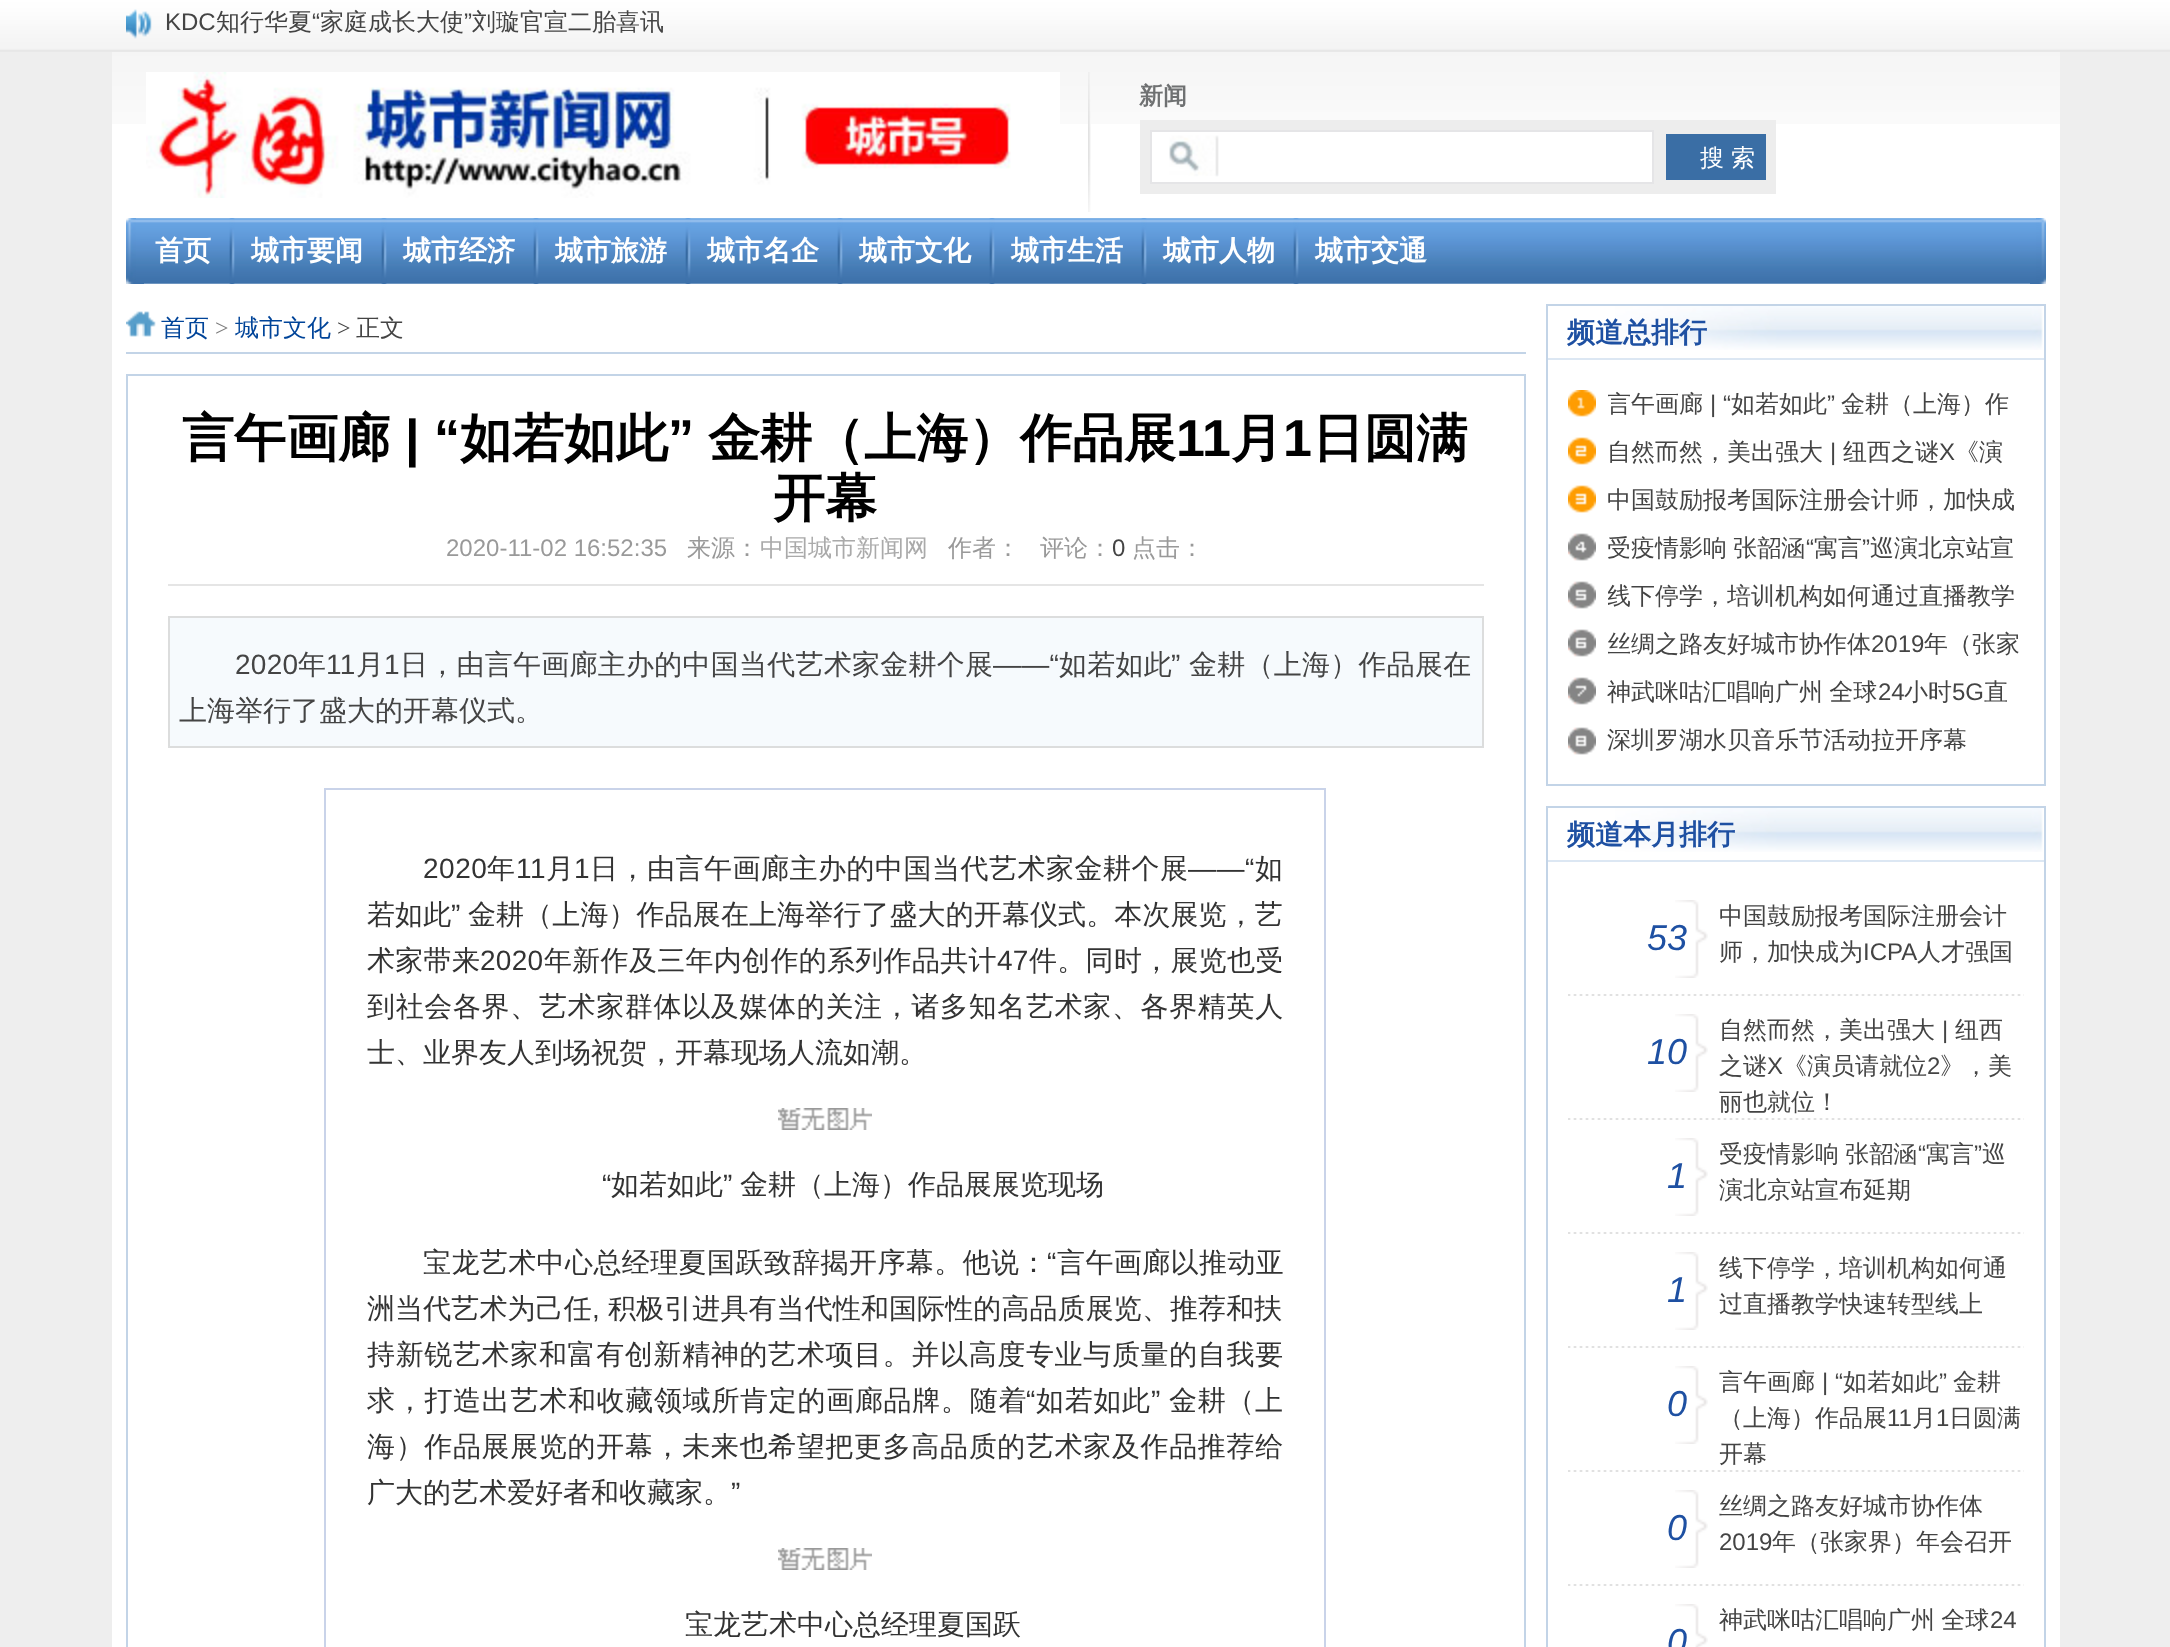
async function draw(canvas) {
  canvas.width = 2170
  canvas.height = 1647
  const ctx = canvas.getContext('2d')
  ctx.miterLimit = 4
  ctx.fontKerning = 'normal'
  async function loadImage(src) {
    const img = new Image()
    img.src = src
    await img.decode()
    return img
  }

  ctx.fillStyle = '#eee'
  ctx.fillRect(0, 0, 2170, 1647)
  ctx.fillStyle = '#fff'
  ctx.fillRect(112, 124, 1948, 1523)
  ctx.drawImage(await loadImage('image0.png'), 0, 0, 2170, 52)
  ctx.drawImage(await loadImage('image1.png'), 126, 9, 26, 30)
  ctx.font = '24px Liberation Sans'
  ctx.fillStyle = '#444'
  ctx.fillText('KDC', 165, 30)
  ctx.font = '500 24px WenQuanYi Zen Hei'
  ctx.fillText('知行华夏', 216, 30)
  ctx.font = '24px Liberation Sans'
  ctx.fillText('“', 312, 30)
  ctx.font = '500 24px WenQuanYi Zen Hei'
  ctx.fillText('家庭成长大使', 320, 30)
  ctx.font = '24px Liberation Sans'
  ctx.fillText('”', 464, 30)
  ctx.font = '500 24px WenQuanYi Zen Hei'
  ctx.fillText('刘璇官宣二胎喜讯', 472, 30)
  ctx.drawImage(await loadImage('image2.png'), 112, 52, 1948, 72)
  ctx.drawImage(await loadImage('image3.png'), 1088, 72, 3, 140)
  ctx.drawImage(await loadImage('image4.png'), 146, 72, 914, 126)
  ctx.font = 'bold 24px WenQuanYi Zen Hei'
  ctx.fillStyle = '#6f7172'
  ctx.fillText('新闻', 1139, 104)
  ctx.fillStyle = '#ededed'
  ctx.fillRect(1140, 120, 636, 74)
  ctx.fillStyle = '#fff'
  ctx.fillRect(1152, 132, 500, 50)
  ctx.drawImage(await loadImage('image5.png'), 1169, 135, 50, 42)
  ctx.strokeStyle = '#e5e5e7'
  ctx.lineWidth = 2
  ctx.strokeRect(1151, 131, 502, 52)
  ctx.fillStyle = '#3a6ea5'
  ctx.fillRect(1666, 134, 100, 46)
  ctx.font = '500 24px WenQuanYi Zen Hei'
  ctx.fillStyle = '#fff'
  ctx.fillText('搜', 1700, 166)
  ctx.fillText('索', 1731, 166)
  ctx.drawImage(await loadImage('image6.png'), 126, 218, 18, 66)
  ctx.drawImage(await loadImage('image7.png'), 2030, 218, 16, 66)
  ctx.drawImage(await loadImage('image8.png'), 136, 218, 1900, 66)
  ctx.font = 'bold 28px WenQuanYi Zen Hei'
  ctx.fillText('首页', 155, 260)
  ctx.drawImage(await loadImage('image9.png'), 229, 218, 6, 66)
  ctx.fillText('城市要闻', 251, 260)
  ctx.drawImage(await loadImage('image9.png'), 381, 218, 6, 66)
  ctx.fillText('城市经济', 403, 260)
  ctx.drawImage(await loadImage('image9.png'), 533, 218, 6, 66)
  ctx.fillText('城市旅游', 555, 260)
  ctx.drawImage(await loadImage('image9.png'), 685, 218, 6, 66)
  ctx.fillText('城市名企', 707, 260)
  ctx.drawImage(await loadImage('image9.png'), 837, 218, 6, 66)
  ctx.fillText('城市文化', 859, 260)
  ctx.drawImage(await loadImage('image9.png'), 989, 218, 6, 66)
  ctx.fillText('城市生活', 1011, 260)
  ctx.drawImage(await loadImage('image9.png'), 1141, 218, 6, 66)
  ctx.fillText('城市人物', 1163, 260)
  ctx.drawImage(await loadImage('image9.png'), 1293, 218, 6, 66)
  ctx.fillText('城市交通', 1315, 260)
  ctx.drawImage(await loadImage('image10.png'), 126, 311, 30, 26)
  ctx.fillStyle = '#c3d4e7'
  ctx.fillRect(126, 352, 1400, 2)
  ctx.font = '500 24px WenQuanYi Zen Hei'
  ctx.fillStyle = '#049'
  ctx.fillText('首页', 161, 336)
  ctx.font = '24px Liberation Serif'
  ctx.fillStyle = '#7e7e7e'
  ctx.fillText('>', 215, 336)
  ctx.font = '500 24px WenQuanYi Zen Hei'
  ctx.fillStyle = '#049'
  ctx.fillText('城市文化', 235, 336)
  ctx.font = '24px Liberation Serif'
  ctx.fillStyle = '#444'
  ctx.fillText('>', 337, 336)
  ctx.font = '500 24px WenQuanYi Zen Hei'
  ctx.fillText('正文', 356, 336)
  ctx.strokeStyle = '#c3d4e7'
  ctx.strokeRect(127, 375, 1398, 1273)
  ctx.fillStyle = '#e5e5e5'
  ctx.fillRect(168, 584, 1316, 2)
  ctx.font = 'bold 52px WenQuanYi Zen Hei'
  ctx.fillStyle = '#000'
  ctx.fillText('言午画廊', 182, 456)
  ctx.font = 'bold 52px Liberation Sans'
  ctx.fillText('| “', 405, 456)
  ctx.font = 'bold 52px WenQuanYi Zen Hei'
  ctx.fillText('如若如此', 460, 456)
  ctx.font = 'bold 52px Liberation Sans'
  ctx.fillText('”', 668, 456)
  ctx.font = 'bold 52px WenQuanYi Zen Hei'
  ctx.fillText('金耕（上海）作品展', 708, 456)
  ctx.font = 'bold 52px Liberation Sans'
  ctx.fillText('11', 1176, 456)
  ctx.font = 'bold 52px WenQuanYi Zen Hei'
  ctx.fillText('月', 1231, 456)
  ctx.font = 'bold 52px Liberation Sans'
  ctx.fillText('1', 1283, 456)
  ctx.font = 'bold 52px WenQuanYi Zen Hei'
  ctx.fillText('日圆满', 1312, 456)
  ctx.fillText('开幕', 773, 516)
  ctx.font = '24px Liberation Sans'
  ctx.fillStyle = '#999'
  ctx.fillText('2020-11-02 16:52:35', 446, 556)
  ctx.font = '500 24px WenQuanYi Zen Hei'
  ctx.fillText('来源：', 687, 556)
  ctx.fillStyle = '#aaa'
  ctx.fillText('中国城市新闻网', 760, 556)
  ctx.fillStyle = '#999'
  ctx.fillText('作者：', 948, 556)
  ctx.fillText('评论：', 1040, 556)
  ctx.font = '24px Liberation Sans'
  ctx.fillStyle = '#444'
  ctx.fillText('0', 1112, 556)
  ctx.font = '500 24px WenQuanYi Zen Hei'
  ctx.fillStyle = '#999'
  ctx.fillText('点击：', 1132, 556)
  ctx.fillStyle = '#f6fafd'
  ctx.beginPath()
  ctx.rect(169, 617, 1314, 130)
  ctx.fill()
  ctx.strokeStyle = '#dcdddd'
  ctx.stroke()
  ctx.letterSpacing = '0.25px'
  ctx.font = '28px Liberation Sans'
  ctx.fillStyle = '#444'
  ctx.fillText('2020', 235, 674)
  ctx.font = '500 28px WenQuanYi Zen Hei'
  ctx.fillText('年', 298, 674)
  ctx.font = '28px Liberation Sans'
  ctx.fillText('11', 326, 674)
  ctx.font = '500 28px WenQuanYi Zen Hei'
  ctx.fillText('月', 356, 674)
  ctx.font = '28px Liberation Sans'
  ctx.fillText('1', 384, 674)
  ctx.font = '500 28px WenQuanYi Zen Hei'
  ctx.fillText('日，由言午画廊主办的中国当代艺术家金耕个展', 400, 674)
  ctx.font = '28px Liberation Sans'
  ctx.fillText('——“', 993, 674)
  ctx.font = '500 28px WenQuanYi Zen Hei'
  ctx.fillText('如若如此', 1059, 674)
  ctx.font = '28px Liberation Sans'
  ctx.fillText('”', 1171, 674)
  ctx.font = '500 28px WenQuanYi Zen Hei'
  ctx.fillText('金耕（上海）作品展在', 1189, 674)
  ctx.letterSpacing = '0px'
  ctx.fillText('上海举行了盛大的开幕仪式。', 179, 720)
  ctx.fillStyle = '#c9d3e9'
  ctx.fillRect(324, 788, 1002, 2)
  ctx.fillRect(1324, 788, 2, 859)
  ctx.fillRect(324, 788, 2, 859)
  ctx.letterSpacing = '0.5px'
  ctx.font = '28px Liberation Sans'
  ctx.fillStyle = '#333'
  ctx.fillText('2020', 423, 878)
  ctx.font = '500 28px WenQuanYi Zen Hei'
  ctx.fillText('年', 487, 878)
  ctx.font = '28px Liberation Sans'
  ctx.fillText('11', 516, 878)
  ctx.font = '500 28px WenQuanYi Zen Hei'
  ctx.fillText('月', 546, 878)
  ctx.font = '28px Liberation Sans'
  ctx.fillText('1', 574, 878)
  ctx.font = '500 28px WenQuanYi Zen Hei'
  ctx.fillText('日，由言午画廊主办的中国当代艺术家金耕个展', 590, 878)
  ctx.font = '28px Liberation Sans'
  ctx.fillText('——“', 1188, 878)
  ctx.font = '500 28px WenQuanYi Zen Hei'
  ctx.fillText('如', 1255, 878)
  ctx.letterSpacing = '0.1px'
  ctx.fillText('若如此', 367, 924)
  ctx.font = '28px Liberation Sans'
  ctx.fillText('”', 451, 924)
  ctx.font = '500 28px WenQuanYi Zen Hei'
  ctx.fillText('金耕（上海）作品展在上海举行了盛大的开幕仪式。本次展览，艺', 468, 924)
  ctx.letterSpacing = '0.3px'
  ctx.fillText('术家带来', 367, 970)
  ctx.font = '28px Liberation Sans'
  ctx.fillText('2020', 480, 970)
  ctx.font = '500 28px WenQuanYi Zen Hei'
  ctx.fillText('年新作及三年内创作的系列作品共计', 544, 970)
  ctx.font = '28px Liberation Sans'
  ctx.fillText('47', 997, 970)
  ctx.font = '500 28px WenQuanYi Zen Hei'
  ctx.fillText('件。同时，展览也受', 1029, 970)
  ctx.letterSpacing = '0.65px'
  ctx.fillText('到社会各界、艺术家群体以及媒体的关注，诸多知名艺术家、各界精英人', 367, 1016)
  ctx.letterSpacing = '0px'
  ctx.fillText('士、业界友人到场祝贺，开幕现场人流如潮。', 367, 1062)
  ctx.drawImage(await loadImage('image11.png'), 778, 1108, 94, 22)
  ctx.font = '28px Liberation Sans'
  ctx.fillText('“', 602, 1194)
  ctx.font = '500 28px WenQuanYi Zen Hei'
  ctx.fillText('如若如此', 611, 1194)
  ctx.font = '28px Liberation Sans'
  ctx.fillText('”', 723, 1194)
  ctx.font = '500 28px WenQuanYi Zen Hei'
  ctx.fillText('金耕（上海）作品展展览现场', 740, 1194)
  ctx.letterSpacing = '0.4px'
  ctx.fillText('宝龙艺术中心总经理夏国跃致辞揭开序幕。他说：', 423, 1272)
  ctx.font = '28px Liberation Sans'
  ctx.fillText('“', 1047, 1272)
  ctx.font = '500 28px WenQuanYi Zen Hei'
  ctx.fillText('言午画廊以推动亚', 1057, 1272)
  ctx.letterSpacing = '0.1px'
  ctx.fillText('洲当代艺术为己任', 367, 1318)
  ctx.font = '28px Liberation Sans'
  ctx.fillText(',', 592, 1318)
  ctx.font = '500 28px WenQuanYi Zen Hei'
  ctx.fillText('积极引进具有当代性和国际性的高品质展览、推荐和扶', 608, 1318)
  ctx.letterSpacing = '0.65px'
  ctx.fillText('持新锐艺术家和富有创新精神的艺术项目。并以高度专业与质量的自我要', 367, 1364)
  ctx.letterSpacing = '0.7px'
  ctx.fillText('求，打造出艺术和收藏领域所肯定的画廊品牌。随着', 367, 1410)
  ctx.font = '28px Liberation Sans'
  ctx.fillText('“', 1026, 1410)
  ctx.font = '500 28px WenQuanYi Zen Hei'
  ctx.fillText('如若如此', 1036, 1410)
  ctx.font = '28px Liberation Sans'
  ctx.fillText('”', 1151, 1410)
  ctx.font = '500 28px WenQuanYi Zen Hei'
  ctx.fillText('金耕（上', 1169, 1410)
  ctx.letterSpacing = '0.65px'
  ctx.fillText('海）作品展展览的开幕，未来也希望把更多高品质的艺术家及作品推荐给', 367, 1456)
  ctx.letterSpacing = '0px'
  ctx.fillText('广大的艺术爱好者和收藏家。', 367, 1502)
  ctx.font = '28px Liberation Sans'
  ctx.fillText('”', 731, 1502)
  ctx.drawImage(await loadImage('image11.png'), 778, 1548, 94, 22)
  ctx.font = '500 28px WenQuanYi Zen Hei'
  ctx.fillText('宝龙艺术中心总经理夏国跃', 685, 1634)
  ctx.strokeStyle = '#c3d4e7'
  ctx.strokeRect(1547, 305, 498, 480)
  ctx.drawImage(await loadImage('image12.png'), 1615, 306, 428, 44)
  ctx.fillStyle = '#dce7f3'
  ctx.fillRect(1548, 358, 496, 2)
  ctx.font = 'bold 28px WenQuanYi Zen Hei'
  ctx.fillStyle = '#1e50a2'
  ctx.fillText('频道总排行', 1567, 342)
  ctx.drawImage(await loadImage('image13.png'), 1568, 390, 28, 365)
  ctx.save()
  ctx.beginPath()
  ctx.rect(1608, 380, 416, 48)
  ctx.clip()
  ctx.font = '500 24px WenQuanYi Zen Hei'
  ctx.fillStyle = '#444'
  ctx.fillText('言午画廊', 1607, 412)
  ctx.restore()
  ctx.font = '24px Liberation Sans'
  ctx.fillStyle = '#444'
  ctx.fillText('| “', 1710, 412)
  ctx.font = '500 24px WenQuanYi Zen Hei'
  ctx.fillText('如若如此', 1731, 412)
  ctx.font = '24px Liberation Sans'
  ctx.fillText('”', 1827, 412)
  ctx.font = '500 24px WenQuanYi Zen Hei'
  ctx.fillText('金耕（上海）作', 1841, 412)
  ctx.fillText('自然而然，美出强大', 1607, 460)
  ctx.font = '24px Liberation Sans'
  ctx.fillText('|', 1830, 460)
  ctx.font = '500 24px WenQuanYi Zen Hei'
  ctx.fillText('纽西之谜', 1843, 460)
  ctx.font = '24px Liberation Sans'
  ctx.fillText('X', 1939, 460)
  ctx.font = '500 24px WenQuanYi Zen Hei'
  ctx.fillText('《演', 1955, 460)
  ctx.fillText('中国鼓励报考国际注册会计师，加快成', 1607, 508)
  ctx.wordSpacing = '-1px'
  ctx.fillText('受疫情影响 张韶涵', 1607, 556)
  ctx.wordSpacing = '0px'
  ctx.font = '24px Liberation Sans'
  ctx.fillText('“', 1806, 556)
  ctx.font = '500 24px WenQuanYi Zen Hei'
  ctx.fillText('寓言', 1814, 556)
  ctx.font = '24px Liberation Sans'
  ctx.fillText('”', 1862, 556)
  ctx.font = '500 24px WenQuanYi Zen Hei'
  ctx.fillText('巡演北京站宣', 1870, 556)
  ctx.save()
  ctx.beginPath()
  ctx.rect(1608, 572, 416, 48)
  ctx.clip()
  ctx.fillText('线下停学，培训机构如何通过直播教学', 1607, 604)
  ctx.restore()
  ctx.save()
  ctx.beginPath()
  ctx.rect(1608, 620, 416, 48)
  ctx.clip()
  ctx.fillText('丝绸之路友好城市协作体', 1607, 652)
  ctx.restore()
  ctx.font = '24px Liberation Sans'
  ctx.fillText('2019', 1871, 652)
  ctx.font = '500 24px WenQuanYi Zen Hei'
  ctx.fillText('年（张家', 1924, 652)
  ctx.wordSpacing = '-1px'
  ctx.fillText('神武咪咕汇唱响广州 全球', 1607, 700)
  ctx.wordSpacing = '0px'
  ctx.font = '24px Liberation Sans'
  ctx.fillText('24', 1878, 700)
  ctx.font = '500 24px WenQuanYi Zen Hei'
  ctx.fillText('小时', 1904, 700)
  ctx.font = '24px Liberation Sans'
  ctx.fillText('5G', 1952, 700)
  ctx.font = '500 24px WenQuanYi Zen Hei'
  ctx.fillText('直', 1984, 700)
  ctx.fillText('深圳罗湖水贝音乐节活动拉开序幕', 1607, 748)
  ctx.strokeRect(1547, 807, 498, 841)
  ctx.drawImage(await loadImage('image12.png'), 1615, 808, 428, 44)
  ctx.fillStyle = '#dce7f3'
  ctx.fillRect(1548, 860, 496, 2)
  ctx.font = 'bold 28px WenQuanYi Zen Hei'
  ctx.fillStyle = '#1e50a2'
  ctx.fillText('频道本月排行', 1567, 844)
  ctx.drawImage(await loadImage('image14.png'), 1675, 900, 33, 78)
  ctx.font = 'italic 36px Liberation Sans'
  ctx.fillText('53', 1647, 950)
  ctx.font = '500 24px WenQuanYi Zen Hei'
  ctx.fillStyle = '#444'
  ctx.fillText('中国鼓励报考国际注册会计', 1719, 924)
  ctx.fillText('师，加快成为', 1719, 960)
  ctx.font = '24px Liberation Sans'
  ctx.fillText('ICPA', 1863, 960)
  ctx.font = '500 24px WenQuanYi Zen Hei'
  ctx.fillText('人才强国', 1917, 960)
  ctx.drawImage(await loadImage('image15.png'), 1568, 994, 456, 2)
  ctx.drawImage(await loadImage('image14.png'), 1675, 1014, 33, 78)
  ctx.font = 'italic 36px Liberation Sans'
  ctx.fillStyle = '#1e50a2'
  ctx.fillText('10', 1647, 1064)
  ctx.font = '500 24px WenQuanYi Zen Hei'
  ctx.fillStyle = '#444'
  ctx.fillText('自然而然，美出强大', 1719, 1038)
  ctx.font = '24px Liberation Sans'
  ctx.fillText('|', 1942, 1038)
  ctx.font = '500 24px WenQuanYi Zen Hei'
  ctx.fillText('纽西', 1955, 1038)
  ctx.fillText('之谜', 1719, 1074)
  ctx.font = '24px Liberation Sans'
  ctx.fillText('X', 1767, 1074)
  ctx.font = '500 24px WenQuanYi Zen Hei'
  ctx.fillText('《演员请就位', 1783, 1074)
  ctx.font = '24px Liberation Sans'
  ctx.fillText('2', 1927, 1074)
  ctx.font = '500 24px WenQuanYi Zen Hei'
  ctx.fillText('》，美', 1940, 1074)
  ctx.fillText('丽也就位！', 1719, 1110)
  ctx.drawImage(await loadImage('image15.png'), 1568, 1118, 456, 2)
  ctx.drawImage(await loadImage('image14.png'), 1675, 1138, 33, 78)
  ctx.font = 'italic 36px Liberation Sans'
  ctx.fillStyle = '#1e50a2'
  ctx.fillText('1', 1667, 1188)
  ctx.wordSpacing = '-1px'
  ctx.font = '500 24px WenQuanYi Zen Hei'
  ctx.fillStyle = '#444'
  ctx.fillText('受疫情影响 张韶涵', 1719, 1162)
  ctx.wordSpacing = '0px'
  ctx.font = '24px Liberation Sans'
  ctx.fillText('“', 1918, 1162)
  ctx.font = '500 24px WenQuanYi Zen Hei'
  ctx.fillText('寓言', 1926, 1162)
  ctx.font = '24px Liberation Sans'
  ctx.fillText('”', 1974, 1162)
  ctx.font = '500 24px WenQuanYi Zen Hei'
  ctx.fillText('巡', 1982, 1162)
  ctx.fillText('演北京站宣布延期', 1719, 1198)
  ctx.drawImage(await loadImage('image15.png'), 1568, 1232, 456, 2)
  ctx.drawImage(await loadImage('image14.png'), 1675, 1252, 33, 78)
  ctx.font = 'italic 36px Liberation Sans'
  ctx.fillStyle = '#1e50a2'
  ctx.fillText('1', 1667, 1302)
  ctx.font = '500 24px WenQuanYi Zen Hei'
  ctx.fillStyle = '#444'
  ctx.fillText('线下停学，培训机构如何通', 1719, 1276)
  ctx.fillText('过直播教学快速转型线上', 1719, 1312)
  ctx.drawImage(await loadImage('image15.png'), 1568, 1346, 456, 2)
  ctx.drawImage(await loadImage('image14.png'), 1675, 1366, 33, 78)
  ctx.font = 'italic 36px Liberation Sans'
  ctx.fillStyle = '#1e50a2'
  ctx.fillText('0', 1667, 1416)
  ctx.font = '500 24px WenQuanYi Zen Hei'
  ctx.fillStyle = '#444'
  ctx.fillText('言午画廊', 1719, 1390)
  ctx.font = '24px Liberation Sans'
  ctx.fillText('| “', 1822, 1390)
  ctx.font = '500 24px WenQuanYi Zen Hei'
  ctx.fillText('如若如此', 1843, 1390)
  ctx.font = '24px Liberation Sans'
  ctx.fillText('”', 1939, 1390)
  ctx.font = '500 24px WenQuanYi Zen Hei'
  ctx.fillText('金耕', 1953, 1390)
  ctx.fillText('（上海）作品展', 1719, 1426)
  ctx.font = '24px Liberation Sans'
  ctx.fillText('11', 1887, 1426)
  ctx.font = '500 24px WenQuanYi Zen Hei'
  ctx.fillText('月', 1912, 1426)
  ctx.font = '24px Liberation Sans'
  ctx.fillText('1', 1936, 1426)
  ctx.font = '500 24px WenQuanYi Zen Hei'
  ctx.fillText('日圆满', 1949, 1426)
  ctx.fillText('开幕', 1719, 1462)
  ctx.drawImage(await loadImage('image15.png'), 1568, 1470, 456, 2)
  ctx.drawImage(await loadImage('image14.png'), 1675, 1490, 33, 78)
  ctx.font = 'italic 36px Liberation Sans'
  ctx.fillStyle = '#1e50a2'
  ctx.fillText('0', 1667, 1540)
  ctx.font = '500 24px WenQuanYi Zen Hei'
  ctx.fillStyle = '#444'
  ctx.fillText('丝绸之路友好城市协作体', 1719, 1514)
  ctx.font = '24px Liberation Sans'
  ctx.fillText('2019', 1719, 1550)
  ctx.font = '500 24px WenQuanYi Zen Hei'
  ctx.fillText('年（张家界）年会召开', 1772, 1550)
  ctx.drawImage(await loadImage('image15.png'), 1568, 1584, 456, 2)
  ctx.wordSpacing = '-1px'
  ctx.fillText('神武咪咕汇唱响广州 全球', 1719, 1628)
  ctx.wordSpacing = '0px'
  ctx.font = '24px Liberation Sans'
  ctx.fillText('24', 1990, 1628)
  ctx.drawImage(await loadImage('image16.png'), 1675, 1604, 33, 43)
  ctx.font = 'italic 36px Liberation Sans'
  ctx.fillStyle = '#1e50a2'
  ctx.fillText('0', 1667, 1654)
}

draw(document.querySelector('canvas'))
